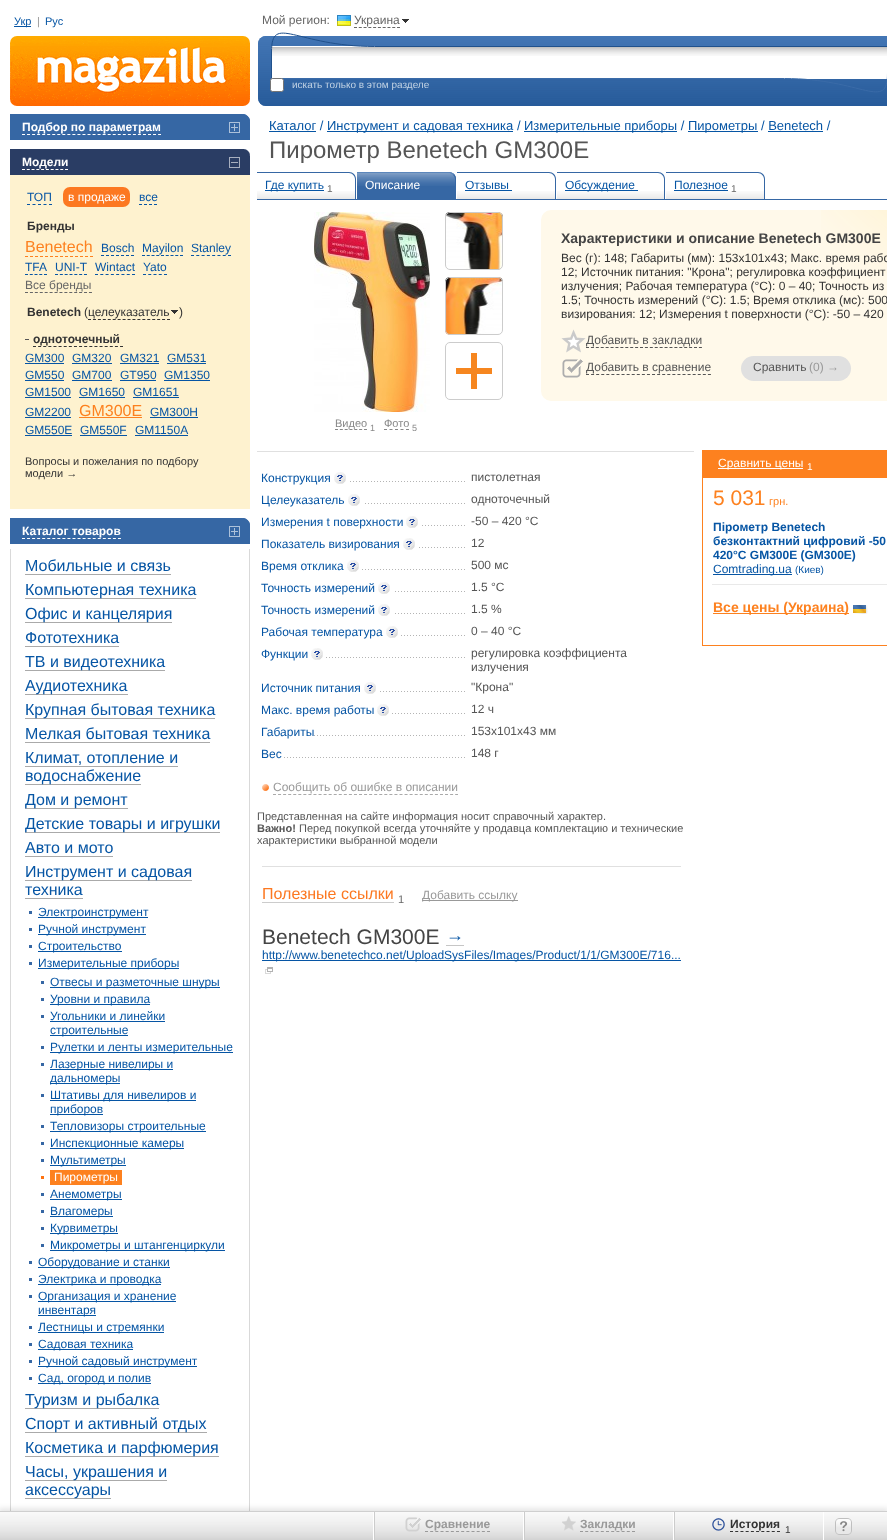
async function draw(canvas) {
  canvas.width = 887
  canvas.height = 1540
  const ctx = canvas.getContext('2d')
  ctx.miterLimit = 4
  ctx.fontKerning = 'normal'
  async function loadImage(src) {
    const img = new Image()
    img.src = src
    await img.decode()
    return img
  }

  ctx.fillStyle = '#fff'
  ctx.fillRect(0, 0, 887, 1540)
  ctx.fillStyle = '#0655a4'
  ctx.fillRect(14, 26, 17, 1)
  ctx.font = '11px Liberation Sans'
  ctx.fillText('Укр', 14, 25)
  ctx.fillStyle = '#999'
  ctx.fillText('|', 37, 25)
  ctx.fillStyle = '#0655a4'
  ctx.fillText('Рус', 45, 25)
  ctx.font = '12px Liberation Sans'
  ctx.fillStyle = '#666'
  ctx.fillText('Мой регион:', 262, 24)
  ctx.drawImage(await loadImage('image0.png'), 337, 15, 14, 11)
  ctx.fillText('Украина', 354, 24)
  ctx.beginPath()
  ctx.moveTo(354, 27.5)
  ctx.lineTo(400, 27.5)
  ctx.strokeStyle = '#666'
  ctx.setLineDash([3, 1.78])
  ctx.stroke()
  ctx.drawImage(await loadImage('image1.png'), 402, 19, 7, 4)
  ctx.drawImage(await loadImage('image2.png'), 10, 36, 240, 70)
  ctx.fillStyle = '#4376b5'
  ctx.beginPath()
  ctx.roundRect(258, 36, 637, 70, 8)
  ctx.fill()
  ctx.drawImage(await loadImage('image3.png'), 258, 36, 629, 70)
  ctx.fillStyle = '#fff'
  ctx.beginPath()
  ctx.roundRect(271, 46, 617, 33, 1)
  ctx.fill()
  ctx.drawImage(await loadImage('image4.png'), 271, 47, 616, 9)
  ctx.beginPath()
  ctx.moveTo(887.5, 46.5)
  ctx.lineTo(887.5, 73)
  ctx.bezierCurveTo(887.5, 112, 863, 78.5, 784.5, 78.5)
  ctx.lineTo(271.5, 78.5)
  ctx.strokeStyle = '#3a6ba8'
  ctx.setLineDash([])
  ctx.stroke()
  ctx.beginPath()
  ctx.moveTo(271.5, 78.5)
  ctx.lineTo(271.5, 52)
  ctx.bezierCurveTo(271.5, 13, 296, 46.5, 374.5, 46.5)
  ctx.lineTo(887.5, 46.5)
  ctx.strokeStyle = '#20518c'
  ctx.stroke()
  ctx.beginPath()
  ctx.roundRect(270.5, 78.5, 13, 13, 2)
  ctx.fill()
  ctx.strokeStyle = '#767676'
  ctx.stroke()
  ctx.font = '10px Liberation Sans'
  ctx.fillStyle = '#c2d3e4'
  ctx.fillText('искать только в этом разделе', 292, 88)
  ctx.fillStyle = '#3667a4'
  ctx.fillRect(10, 114, 240, 26)
  ctx.drawImage(await loadImage('image5.png'), 229, 114, 21, 19)
  ctx.font = 'bold 12px Liberation Sans'
  ctx.fillStyle = '#fff'
  ctx.fillText('Подбор по параметрам', 22, 131)
  ctx.beginPath()
  ctx.moveTo(22, 134.5)
  ctx.lineTo(161, 134.5)
  ctx.strokeStyle = '#fff'
  ctx.setLineDash([3, 2.04])
  ctx.stroke()
  ctx.fillStyle = '#2a3d64'
  ctx.fillRect(10, 149, 240, 26)
  ctx.drawImage(await loadImage('image6.png'), 229, 149, 21, 19)
  ctx.fillStyle = '#fff'
  ctx.fillText('Модели', 22, 166)
  ctx.beginPath()
  ctx.moveTo(22, 169.5)
  ctx.lineTo(68, 169.5)
  ctx.setLineDash([3, 1.78])
  ctx.stroke()
  ctx.fillStyle = '#fef2cf'
  ctx.fillRect(10, 175, 240, 334)
  ctx.font = '12px Liberation Sans'
  ctx.fillStyle = '#0655a4'
  ctx.fillText('ТОП', 27, 201)
  ctx.beginPath()
  ctx.moveTo(27, 204.5)
  ctx.lineTo(52, 204.5)
  ctx.strokeStyle = '#0655a4'
  ctx.setLineDash([3, 2.5])
  ctx.stroke()
  ctx.fillStyle = '#fc7821'
  ctx.beginPath()
  ctx.roundRect(63, 187, 67, 20, 7)
  ctx.fill()
  ctx.fillStyle = '#fff'
  ctx.fillText('в продаже', 68, 201)
  ctx.fillStyle = '#0655a4'
  ctx.fillText('все', 139, 201)
  ctx.beginPath()
  ctx.moveTo(139, 204.5)
  ctx.lineTo(157, 204.5)
  ctx.setLineDash([3, 2])
  ctx.stroke()
  ctx.font = 'bold 12px Liberation Sans'
  ctx.fillStyle = '#333'
  ctx.fillText('Бренды', 27, 230)
  ctx.beginPath()
  ctx.moveTo(25, 256.5)
  ctx.lineTo(93, 256.5)
  ctx.strokeStyle = '#fd811f'
  ctx.stroke()
  ctx.font = '16px Liberation Sans'
  ctx.fillStyle = '#fd811f'
  ctx.fillText('Benetech', 25, 252)
  ctx.beginPath()
  ctx.moveTo(101, 255.5)
  ctx.lineTo(134, 255.5)
  ctx.strokeStyle = '#0655a4'
  ctx.stroke()
  ctx.font = '12px Liberation Sans'
  ctx.fillStyle = '#0655a4'
  ctx.fillText('Bosch', 101, 252)
  ctx.beginPath()
  ctx.moveTo(142, 255.5)
  ctx.lineTo(183, 255.5)
  ctx.setLineDash([3, 1.75])
  ctx.stroke()
  ctx.fillText('Mayilon', 142, 252)
  ctx.beginPath()
  ctx.moveTo(191, 255.5)
  ctx.lineTo(231, 255.5)
  ctx.setLineDash([3, 2.29])
  ctx.stroke()
  ctx.fillText('Stanley', 191, 252)
  ctx.beginPath()
  ctx.moveTo(25, 274.5)
  ctx.lineTo(47, 274.5)
  ctx.setLineDash([3, 1.75])
  ctx.stroke()
  ctx.fillText('TFA', 25, 271)
  ctx.beginPath()
  ctx.moveTo(55, 274.5)
  ctx.lineTo(87, 274.5)
  ctx.setLineDash([3, 1.83])
  ctx.stroke()
  ctx.fillText('UNI-T', 55, 271)
  ctx.beginPath()
  ctx.moveTo(95, 274.5)
  ctx.lineTo(135, 274.5)
  ctx.setLineDash([3, 2.29])
  ctx.stroke()
  ctx.fillText('Wintact', 95, 271)
  ctx.beginPath()
  ctx.moveTo(143, 274.5)
  ctx.lineTo(167, 274.5)
  ctx.setLineDash([3, 2.25])
  ctx.stroke()
  ctx.fillText('Yato', 143, 271)
  ctx.fillStyle = '#666'
  ctx.fillText('Все бренды', 25, 289)
  ctx.beginPath()
  ctx.moveTo(25, 292.5)
  ctx.lineTo(92, 292.5)
  ctx.strokeStyle = '#666'
  ctx.setLineDash([3, 1.92])
  ctx.stroke()
  ctx.font = 'bold 12px Liberation Sans'
  ctx.fillStyle = '#333'
  ctx.fillText('Benetech', 27, 316)
  ctx.font = '12px Liberation Sans'
  ctx.fillText('(целеуказатель', 84, 316)
  ctx.beginPath()
  ctx.moveTo(88, 319.5)
  ctx.lineTo(170, 319.5)
  ctx.strokeStyle = '#333'
  ctx.setLineDash([3, 1.94])
  ctx.stroke()
  ctx.drawImage(await loadImage('image7.png'), 171, 310, 7, 4)
  ctx.fillText(')', 179, 316)
  ctx.fillStyle = '#555'
  ctx.fillRect(25, 339, 4, 1)
  ctx.font = 'bold 12px Liberation Sans'
  ctx.fillStyle = '#333'
  ctx.fillText('одноточечный', 33, 343)
  ctx.beginPath()
  ctx.moveTo(33, 346.5)
  ctx.lineTo(123, 346.5)
  ctx.setLineDash([3, 2.12])
  ctx.stroke()
  ctx.font = '12px Liberation Sans'
  ctx.fillStyle = '#0655a4'
  ctx.fillText('GM300', 25, 362)
  ctx.fillRect(25, 363, 39, 1)
  ctx.fillText('GM320', 72, 362)
  ctx.fillRect(72, 363, 40, 1)
  ctx.fillText('GM321', 120, 362)
  ctx.fillRect(120, 363, 39, 1)
  ctx.fillText('GM531', 167, 362)
  ctx.fillRect(167, 363, 39, 1)
  ctx.fillText('GM550', 25, 379)
  ctx.fillRect(25, 380, 39, 1)
  ctx.fillText('GM700', 72, 379)
  ctx.fillRect(72, 380, 40, 1)
  ctx.fillText('GT950', 120, 379)
  ctx.fillRect(120, 380, 36, 1)
  ctx.fillText('GM1350', 164, 379)
  ctx.fillRect(164, 380, 46, 1)
  ctx.fillText('GM1500', 25, 396)
  ctx.fillRect(25, 397, 46, 1)
  ctx.fillText('GM1650', 79, 396)
  ctx.fillRect(79, 397, 46, 1)
  ctx.fillText('GM1651', 133, 396)
  ctx.fillRect(133, 397, 46, 1)
  ctx.fillText('GM2200', 25, 416)
  ctx.fillRect(25, 417, 46, 1)
  ctx.font = '16px Liberation Sans'
  ctx.fillStyle = '#fd811f'
  ctx.fillText('GM300E', 79, 416)
  ctx.fillRect(79, 417, 63, 1)
  ctx.font = '12px Liberation Sans'
  ctx.fillStyle = '#0655a4'
  ctx.fillText('GM300H', 150, 416)
  ctx.fillRect(150, 417, 48, 1)
  ctx.fillText('GM550E', 25, 434)
  ctx.fillRect(25, 435, 47, 1)
  ctx.fillText('GM550F', 80, 434)
  ctx.fillRect(80, 435, 47, 1)
  ctx.fillText('GM1150A', 135, 434)
  ctx.fillRect(135, 435, 53, 1)
  ctx.font = '11px Liberation Sans'
  ctx.fillStyle = '#333'
  ctx.fillText('Вопросы и пожелания по подбору', 25, 465)
  ctx.fillText('модели →', 25, 477)
  ctx.fillStyle = '#3667a4'
  ctx.fillRect(10, 518, 240, 26)
  ctx.drawImage(await loadImage('image5.png'), 229, 518, 21, 19)
  ctx.font = 'bold 12px Liberation Sans'
  ctx.fillStyle = '#fff'
  ctx.fillText('Каталог товаров', 22, 535)
  ctx.beginPath()
  ctx.moveTo(22, 538.5)
  ctx.lineTo(121, 538.5)
  ctx.strokeStyle = '#fff'
  ctx.setLineDash([3, 2.05])
  ctx.stroke()
  ctx.fillStyle = '#d9d9d9'
  ctx.fillRect(249, 549, 1, 962)
  ctx.fillRect(10, 549, 1, 962)
  ctx.font = '16px Liberation Sans'
  ctx.fillStyle = '#0655a4'
  ctx.fillText('Мобильные и связь', 25, 571)
  ctx.fillStyle = '#aaa'
  ctx.fillRect(25, 574, 146, 1)
  ctx.fillRect(25, 598, 171, 1)
  ctx.fillStyle = '#0655a4'
  ctx.fillText('Компьютерная техника', 25, 595)
  ctx.fillStyle = '#aaa'
  ctx.fillRect(25, 622, 147, 1)
  ctx.fillStyle = '#0655a4'
  ctx.fillText('Офис и канцелярия', 25, 619)
  ctx.fillText('Фототехника', 25, 643)
  ctx.fillStyle = '#aaa'
  ctx.fillRect(25, 646, 94, 1)
  ctx.fillRect(25, 670, 140, 1)
  ctx.fillStyle = '#0655a4'
  ctx.fillText('ТВ и видеотехника', 25, 667)
  ctx.fillStyle = '#aaa'
  ctx.fillRect(25, 694, 103, 1)
  ctx.fillStyle = '#0655a4'
  ctx.fillText('Аудиотехника', 25, 691)
  ctx.fillStyle = '#aaa'
  ctx.fillRect(25, 718, 190, 1)
  ctx.fillStyle = '#0655a4'
  ctx.fillText('Крупная бытовая техника', 25, 715)
  ctx.fillText('Мелкая бытовая техника', 25, 739)
  ctx.fillStyle = '#aaa'
  ctx.fillRect(25, 742, 185, 1)
  ctx.fillStyle = '#0655a4'
  ctx.fillText('Климат, отопление и', 25, 763)
  ctx.fillStyle = '#aaa'
  ctx.fillRect(25, 766, 153, 1)
  ctx.fillRect(25, 784, 116, 1)
  ctx.fillStyle = '#0655a4'
  ctx.fillText('водоснабжение', 25, 781)
  ctx.fillStyle = '#aaa'
  ctx.fillRect(25, 808, 103, 1)
  ctx.fillStyle = '#0655a4'
  ctx.fillText('Дом и ремонт', 25, 805)
  ctx.fillStyle = '#aaa'
  ctx.fillRect(25, 832, 195, 1)
  ctx.fillStyle = '#0655a4'
  ctx.fillText('Детские товары и игрушки', 25, 829)
  ctx.fillText('Авто и мото', 25, 853)
  ctx.fillStyle = '#aaa'
  ctx.fillRect(25, 856, 88, 1)
  ctx.fillRect(25, 880, 167, 1)
  ctx.fillStyle = '#0655a4'
  ctx.fillText('Инструмент и садовая', 25, 877)
  ctx.fillText('техника', 25, 895)
  ctx.fillStyle = '#aaa'
  ctx.fillRect(25, 898, 58, 1)
  ctx.fillStyle = '#3667a4'
  ctx.fillRect(29, 911, 3, 3)
  ctx.fillStyle = '#0655a4'
  ctx.fillRect(38, 917, 110, 1)
  ctx.font = '12px Liberation Sans'
  ctx.fillText('Электроинструмент', 38, 916)
  ctx.fillStyle = '#3667a4'
  ctx.fillRect(29, 928, 3, 3)
  ctx.fillStyle = '#0655a4'
  ctx.fillRect(38, 934, 108, 1)
  ctx.fillText('Ручной инструмент', 38, 933)
  ctx.fillStyle = '#3667a4'
  ctx.fillRect(29, 945, 3, 3)
  ctx.fillStyle = '#0655a4'
  ctx.fillRect(38, 951, 84, 1)
  ctx.fillText('Строительство', 38, 950)
  ctx.fillStyle = '#3667a4'
  ctx.fillRect(29, 962, 3, 3)
  ctx.fillStyle = '#0655a4'
  ctx.fillRect(38, 968, 141, 1)
  ctx.fillText('Измерительные приборы', 38, 967)
  ctx.fillStyle = '#3667a4'
  ctx.fillRect(41, 981, 3, 3)
  ctx.fillStyle = '#0655a4'
  ctx.fillRect(50, 987, 170, 1)
  ctx.fillText('Отвесы и разметочные шнуры', 50, 986)
  ctx.fillStyle = '#3667a4'
  ctx.fillRect(41, 998, 3, 3)
  ctx.fillStyle = '#0655a4'
  ctx.fillRect(50, 1004, 100, 1)
  ctx.fillText('Уровни и правила', 50, 1003)
  ctx.fillStyle = '#3667a4'
  ctx.fillRect(41, 1015, 3, 3)
  ctx.fillStyle = '#0655a4'
  ctx.fillText('Угольники и линейки', 50, 1020)
  ctx.fillRect(50, 1021, 115, 1)
  ctx.fillRect(50, 1035, 78, 1)
  ctx.fillText('строительные', 50, 1034)
  ctx.fillStyle = '#3667a4'
  ctx.fillRect(41, 1046, 3, 3)
  ctx.fillStyle = '#0655a4'
  ctx.fillRect(50, 1052, 183, 1)
  ctx.fillText('Рулетки и ленты измерительные', 50, 1051)
  ctx.fillStyle = '#3667a4'
  ctx.fillRect(41, 1063, 3, 3)
  ctx.fillStyle = '#0655a4'
  ctx.fillRect(50, 1069, 123, 1)
  ctx.fillText('Лазерные нивелиры и', 50, 1068)
  ctx.fillRect(50, 1083, 70, 1)
  ctx.fillText('дальномеры', 50, 1082)
  ctx.fillStyle = '#3667a4'
  ctx.fillRect(41, 1094, 3, 3)
  ctx.fillStyle = '#0655a4'
  ctx.fillRect(50, 1100, 146, 1)
  ctx.fillText('Штативы для нивелиров и', 50, 1099)
  ctx.fillRect(50, 1114, 53, 1)
  ctx.fillText('приборов', 50, 1113)
  ctx.fillStyle = '#3667a4'
  ctx.fillRect(41, 1125, 3, 3)
  ctx.fillStyle = '#0655a4'
  ctx.fillRect(50, 1131, 156, 1)
  ctx.fillText('Тепловизоры строительные', 50, 1130)
  ctx.fillStyle = '#3667a4'
  ctx.fillRect(41, 1142, 3, 3)
  ctx.fillStyle = '#0655a4'
  ctx.fillRect(50, 1148, 134, 1)
  ctx.fillText('Инспекционные камеры', 50, 1147)
  ctx.fillStyle = '#3667a4'
  ctx.fillRect(41, 1159, 3, 3)
  ctx.fillStyle = '#0655a4'
  ctx.fillRect(50, 1165, 76, 1)
  ctx.fillText('Мультиметры', 50, 1164)
  ctx.fillStyle = '#fe7210'
  ctx.fillRect(41, 1176, 3, 3)
  ctx.fillStyle = '#fd811f'
  ctx.fillRect(50, 1170, 72, 15)
  ctx.fillStyle = '#fff'
  ctx.fillText('Пирометры', 54, 1181)
  ctx.fillStyle = '#3667a4'
  ctx.fillRect(41, 1193, 3, 3)
  ctx.fillStyle = '#0655a4'
  ctx.fillRect(50, 1199, 72, 1)
  ctx.fillText('Анемометры', 50, 1198)
  ctx.fillStyle = '#3667a4'
  ctx.fillRect(41, 1210, 3, 3)
  ctx.fillStyle = '#0655a4'
  ctx.fillRect(50, 1216, 63, 1)
  ctx.fillText('Влагомеры', 50, 1215)
  ctx.fillStyle = '#3667a4'
  ctx.fillRect(41, 1227, 3, 3)
  ctx.fillStyle = '#0655a4'
  ctx.fillRect(50, 1233, 68, 1)
  ctx.fillText('Курвиметры', 50, 1232)
  ctx.fillStyle = '#3667a4'
  ctx.fillRect(41, 1244, 3, 3)
  ctx.fillStyle = '#0655a4'
  ctx.fillRect(50, 1250, 175, 1)
  ctx.fillText('Микрометры и штангенциркули', 50, 1249)
  ctx.fillStyle = '#3667a4'
  ctx.fillRect(29, 1261, 3, 3)
  ctx.fillStyle = '#0655a4'
  ctx.fillRect(38, 1267, 132, 1)
  ctx.fillText('Оборудование и станки', 38, 1266)
  ctx.fillStyle = '#3667a4'
  ctx.fillRect(29, 1278, 3, 3)
  ctx.fillStyle = '#0655a4'
  ctx.fillRect(38, 1284, 123, 1)
  ctx.fillText('Электрика и проводка', 38, 1283)
  ctx.fillStyle = '#3667a4'
  ctx.fillRect(29, 1295, 3, 3)
  ctx.fillStyle = '#0655a4'
  ctx.fillRect(38, 1301, 138, 1)
  ctx.fillText('Организация и хранение', 38, 1300)
  ctx.fillRect(38, 1315, 58, 1)
  ctx.fillText('инвентаря', 38, 1314)
  ctx.fillStyle = '#3667a4'
  ctx.fillRect(29, 1326, 3, 3)
  ctx.fillStyle = '#0655a4'
  ctx.fillRect(38, 1332, 126, 1)
  ctx.fillText('Лестницы и стремянки', 38, 1331)
  ctx.fillStyle = '#3667a4'
  ctx.fillRect(29, 1343, 3, 3)
  ctx.fillStyle = '#0655a4'
  ctx.fillRect(38, 1349, 95, 1)
  ctx.fillText('Садовая техника', 38, 1348)
  ctx.fillStyle = '#3667a4'
  ctx.fillRect(29, 1360, 3, 3)
  ctx.fillStyle = '#0655a4'
  ctx.fillRect(38, 1366, 159, 1)
  ctx.fillText('Ручной садовый инструмент', 38, 1365)
  ctx.fillStyle = '#3667a4'
  ctx.fillRect(29, 1377, 3, 3)
  ctx.fillStyle = '#0655a4'
  ctx.fillRect(38, 1383, 113, 1)
  ctx.fillText('Сад, огород и полив', 38, 1382)
  ctx.fillStyle = '#aaa'
  ctx.fillRect(25, 1408, 134, 1)
  ctx.font = '16px Liberation Sans'
  ctx.fillStyle = '#0655a4'
  ctx.fillText('Туризм и рыбалка', 25, 1405)
  ctx.fillStyle = '#aaa'
  ctx.fillRect(25, 1432, 182, 1)
  ctx.fillStyle = '#0655a4'
  ctx.fillText('Спорт и активный отдых', 25, 1429)
  ctx.fillStyle = '#aaa'
  ctx.fillRect(25, 1456, 194, 1)
  ctx.fillStyle = '#0655a4'
  ctx.fillText('Косметика и парфюмерия', 25, 1453)
  ctx.fillStyle = '#aaa'
  ctx.fillRect(25, 1480, 142, 1)
  ctx.fillStyle = '#0655a4'
  ctx.fillText('Часы, украшения и', 25, 1477)
  ctx.fillStyle = '#aaa'
  ctx.fillRect(25, 1498, 86, 1)
  ctx.fillStyle = '#0655a4'
  ctx.fillText('аксессуары', 25, 1495)
  ctx.font = '13px Liberation Sans'
  ctx.fillText('Каталог /', 269, 130)
  ctx.fillRect(269, 131, 47, 1)
  ctx.fillRect(327, 131, 186, 1)
  ctx.fillText('Инструмент и садовая техника /', 327, 130)
  ctx.fillRect(524, 131, 153, 1)
  ctx.fillText('Измерительные приборы /', 524, 130)
  ctx.fillRect(688, 131, 70, 1)
  ctx.fillText('Пирометры / Benetech /', 688, 130)
  ctx.fillRect(768, 131, 55, 1)
  ctx.font = '24px Liberation Sans'
  ctx.fillStyle = '#555'
  ctx.fillText('Пирометр Benetech GM300E', 269, 158)
  ctx.fillStyle = '#3667a4'
  ctx.fillRect(257, 199, 630, 1)
  ctx.drawImage(await loadImage('image8.png'), 257, 191, 98, 8)
  ctx.beginPath()
  ctx.moveTo(257, 172)
  ctx.lineTo(349, 172)
  ctx.bezierCurveTo(353, 172, 356, 175, 356, 179)
  ctx.lineTo(356, 199)
  ctx.lineTo(257, 199)
  ctx.closePath()
  ctx.moveTo(257, 173)
  ctx.lineTo(349, 173)
  ctx.bezierCurveTo(352, 173, 355, 176, 355, 179)
  ctx.lineTo(355, 199)
  ctx.lineTo(257, 199)
  ctx.closePath()
  ctx.fill('evenodd')
  ctx.fillStyle = '#0655a4'
  ctx.fillRect(265, 190, 59, 1)
  ctx.font = '12px Liberation Sans'
  ctx.fillText('Где купить', 265, 189)
  ctx.font = '10px Liberation Sans'
  ctx.fillStyle = '#666'
  ctx.fillText('1', 327, 192)
  ctx.fillStyle = '#3667a4'
  ctx.beginPath()
  ctx.roundRect(357, 172, 99, 27, [0, 7, 0, 0])
  ctx.fill()
  ctx.drawImage(await loadImage('image9.png'), 357, 173, 99, 13)
  ctx.fillStyle = '#5c87bc'
  ctx.beginPath()
  ctx.moveTo(357, 172)
  ctx.lineTo(357, 173)
  ctx.lineTo(450, 173)
  ctx.lineTo(453, 175)
  ctx.lineTo(454, 174)
  ctx.bezierCurveTo(453, 173, 451, 172, 449, 172)
  ctx.closePath()
  ctx.fill()
  ctx.fillStyle = '#3667a4'
  ctx.beginPath()
  ctx.moveTo(455, 199)
  ctx.lineTo(456, 199)
  ctx.lineTo(456, 179)
  ctx.bezierCurveTo(456, 177, 455, 175, 454, 174)
  ctx.lineTo(453, 175)
  ctx.bezierCurveTo(454, 176, 455, 177.5, 455, 179)
  ctx.closePath()
  ctx.fill()
  ctx.font = '12px Liberation Sans'
  ctx.fillStyle = '#fff'
  ctx.fillText('Описание', 365, 189)
  ctx.drawImage(await loadImage('image8.png'), 457, 191, 98, 8)
  ctx.fillStyle = '#3667a4'
  ctx.beginPath()
  ctx.moveTo(457, 172)
  ctx.lineTo(549, 172)
  ctx.bezierCurveTo(553, 172, 556, 175, 556, 179)
  ctx.lineTo(556, 199)
  ctx.lineTo(457, 199)
  ctx.closePath()
  ctx.moveTo(457, 173)
  ctx.lineTo(549, 173)
  ctx.bezierCurveTo(552, 173, 555, 176, 555, 179)
  ctx.lineTo(555, 199)
  ctx.lineTo(457, 199)
  ctx.closePath()
  ctx.fill('evenodd')
  ctx.fillStyle = '#0655a4'
  ctx.fillText('Отзывы', 465, 189)
  ctx.fillRect(465, 190, 47, 1)
  ctx.drawImage(await loadImage('image10.png'), 557, 191, 107, 8)
  ctx.fillStyle = '#3667a4'
  ctx.beginPath()
  ctx.moveTo(557, 172)
  ctx.lineTo(658, 172)
  ctx.bezierCurveTo(662, 172, 665, 175, 665, 179)
  ctx.lineTo(665, 199)
  ctx.lineTo(557, 199)
  ctx.closePath()
  ctx.moveTo(557, 173)
  ctx.lineTo(658, 173)
  ctx.bezierCurveTo(661, 173, 664, 176, 664, 179)
  ctx.lineTo(664, 199)
  ctx.lineTo(557, 199)
  ctx.closePath()
  ctx.fill('evenodd')
  ctx.fillStyle = '#0655a4'
  ctx.fillRect(565, 190, 73, 1)
  ctx.fillText('Обсуждение', 565, 189)
  ctx.drawImage(await loadImage('image8.png'), 666, 191, 98, 8)
  ctx.fillStyle = '#3667a4'
  ctx.beginPath()
  ctx.moveTo(666, 172)
  ctx.lineTo(758, 172)
  ctx.bezierCurveTo(762, 172, 765, 175, 765, 179)
  ctx.lineTo(765, 199)
  ctx.lineTo(666, 199)
  ctx.closePath()
  ctx.moveTo(666, 173)
  ctx.lineTo(758, 173)
  ctx.bezierCurveTo(761, 173, 764, 176, 764, 179)
  ctx.lineTo(764, 199)
  ctx.lineTo(666, 199)
  ctx.closePath()
  ctx.fill('evenodd')
  ctx.fillStyle = '#0655a4'
  ctx.fillText('Полезное', 674, 189)
  ctx.fillRect(674, 190, 54, 1)
  ctx.font = '10px Liberation Sans'
  ctx.fillStyle = '#666'
  ctx.fillText('1', 731, 192)
  ctx.fillStyle = '#fff9ea'
  ctx.beginPath()
  ctx.roundRect(541, 210, 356, 191, 10)
  ctx.fill()
  ctx.drawImage(await loadImage('image11.png'), 821, 210, 66, 63)
  ctx.font = 'bold 14px Liberation Sans'
  ctx.fillStyle = '#444'
  ctx.fillText('Характеристики и описание Benetech GM300E', 561, 243)
  ctx.font = '12px Liberation Sans'
  ctx.fillStyle = '#333'
  ctx.fillText('Вес (г): 148; Габариты (мм): 153x101x43; Макс. время рабо', 561, 262)
  ctx.fillText('12; Источник питания: "Крона"; регулировка коэффициент', 561, 276)
  ctx.fillText('излучения; Рабочая температура (°C): 0 – 40; Точность из', 561, 290)
  ctx.fillText('1.5; Точность измерений (°C): 1.5; Время отклика (мс): 500', 561, 304)
  ctx.fillText('визирования: 12; Измерения t поверхности (°C): -50 – 420', 561, 318)
  ctx.drawImage(await loadImage('image12.png'), 561, 329, 25, 24)
  ctx.fillStyle = '#555'
  ctx.fillText('Добавить в закладки', 586, 344)
  ctx.beginPath()
  ctx.moveTo(586, 347.5)
  ctx.lineTo(702, 347.5)
  ctx.strokeStyle = '#555'
  ctx.setLineDash([3, 1.91])
  ctx.stroke()
  ctx.drawImage(await loadImage('image13.png'), 562, 359, 21, 19)
  ctx.fillText('Добавить в сравнение', 586, 371)
  ctx.beginPath()
  ctx.moveTo(586, 374.5)
  ctx.lineTo(711, 374.5)
  ctx.setLineDash([3, 2.08])
  ctx.stroke()
  ctx.fillStyle = '#e0e0e0'
  ctx.beginPath()
  ctx.roundRect(741, 356, 110, 25, 12.5)
  ctx.fill()
  ctx.fillStyle = '#555'
  ctx.fillText('Сравнить', 753, 371)
  ctx.fillStyle = '#999'
  ctx.fillText('(0) →', 809, 371)
  ctx.drawImage(await loadImage('image14.png'), 445, 212, 58, 58)
  ctx.beginPath()
  ctx.roundRect(445.5, 212.5, 57, 57, 4.5)
  ctx.strokeStyle = '#ccc'
  ctx.setLineDash([])
  ctx.stroke()
  ctx.drawImage(await loadImage('image15.png'), 445, 277, 58, 58)
  ctx.beginPath()
  ctx.roundRect(445.5, 277.5, 57, 57, 4.5)
  ctx.stroke()
  ctx.fillStyle = '#f6861f'
  ctx.beginPath()
  ctx.moveTo(492, 368)
  ctx.lineTo(477, 368)
  ctx.lineTo(477, 353)
  ctx.lineTo(471, 353)
  ctx.lineTo(471, 368)
  ctx.lineTo(456, 368)
  ctx.lineTo(456, 374)
  ctx.lineTo(471, 374)
  ctx.lineTo(471, 389)
  ctx.lineTo(477, 389)
  ctx.lineTo(477, 374)
  ctx.lineTo(492, 374)
  ctx.closePath()
  ctx.fill()
  ctx.beginPath()
  ctx.roundRect(445.5, 342.5, 57, 57, 4.5)
  ctx.stroke()
  ctx.drawImage(await loadImage('image16.png'), 314, 212, 116, 200)
  ctx.beginPath()
  ctx.moveTo(335, 429.5)
  ctx.lineTo(367, 429.5)
  ctx.strokeStyle = '#888'
  ctx.setLineDash([3, 1.83])
  ctx.stroke()
  ctx.font = '11px Liberation Sans'
  ctx.fillStyle = '#888'
  ctx.fillText('Видео', 335, 427)
  ctx.font = '9px Liberation Sans'
  ctx.fillText('1', 370, 431)
  ctx.font = '11px Liberation Sans'
  ctx.fillText('Фото', 384, 427)
  ctx.beginPath()
  ctx.moveTo(384, 429.5)
  ctx.lineTo(409, 429.5)
  ctx.setLineDash([3, 2.5])
  ctx.stroke()
  ctx.font = '9px Liberation Sans'
  ctx.fillText('5', 412, 431)
  ctx.fillStyle = '#e0e0e0'
  ctx.fillRect(257, 451, 437, 1)
  ctx.drawImage(await loadImage('image17.png'), 350, 481, 115, 1)
  ctx.font = '12px Liberation Sans'
  ctx.fillStyle = '#0655a4'
  ctx.fillText('Конструкция', 261, 482)
  ctx.drawImage(await loadImage('image18.png'), 334, 472, 12, 12)
  ctx.fillStyle = '#555'
  ctx.fillText('пистолетная', 471, 481)
  ctx.drawImage(await loadImage('image19.png'), 365, 503, 100, 1)
  ctx.fillStyle = '#0655a4'
  ctx.fillText('Целеуказатель', 261, 504)
  ctx.drawImage(await loadImage('image18.png'), 348, 494, 12, 12)
  ctx.fillStyle = '#555'
  ctx.fillText('одноточечный', 471, 503)
  ctx.drawImage(await loadImage('image20.png'), 422, 525, 43, 1)
  ctx.fillStyle = '#0655a4'
  ctx.fillText('Измерения t поверхности', 261, 526)
  ctx.drawImage(await loadImage('image18.png'), 406, 516, 12, 12)
  ctx.fillStyle = '#555'
  ctx.fillText('-50 – 420 °C', 471, 525)
  ctx.drawImage(await loadImage('image21.png'), 419, 547, 46, 1)
  ctx.fillStyle = '#0655a4'
  ctx.fillText('Показатель визирования', 261, 548)
  ctx.drawImage(await loadImage('image18.png'), 403, 538, 12, 12)
  ctx.fillStyle = '#555'
  ctx.fillText('12', 471, 547)
  ctx.drawImage(await loadImage('image22.png'), 362, 569, 103, 1)
  ctx.fillStyle = '#0655a4'
  ctx.fillText('Время отклика', 261, 570)
  ctx.drawImage(await loadImage('image18.png'), 347, 560, 12, 12)
  ctx.fillStyle = '#555'
  ctx.fillText('500 мс', 471, 569)
  ctx.drawImage(await loadImage('image23.png'), 395, 591, 70, 1)
  ctx.fillStyle = '#0655a4'
  ctx.fillText('Точность измерений', 261, 592)
  ctx.drawImage(await loadImage('image18.png'), 378, 582, 12, 12)
  ctx.fillStyle = '#555'
  ctx.fillText('1.5 °C', 471, 591)
  ctx.drawImage(await loadImage('image23.png'), 395, 613, 70, 1)
  ctx.fillStyle = '#0655a4'
  ctx.fillText('Точность измерений', 261, 614)
  ctx.drawImage(await loadImage('image18.png'), 378, 604, 12, 12)
  ctx.fillStyle = '#555'
  ctx.fillText('1.5 %', 471, 613)
  ctx.drawImage(await loadImage('image24.png'), 401, 635, 64, 1)
  ctx.fillStyle = '#0655a4'
  ctx.fillText('Рабочая температура', 261, 636)
  ctx.drawImage(await loadImage('image18.png'), 386, 626, 12, 12)
  ctx.fillStyle = '#555'
  ctx.fillText('0 – 40 °C', 471, 635)
  ctx.drawImage(await loadImage('image25.png'), 326, 657, 139, 1)
  ctx.fillStyle = '#0655a4'
  ctx.fillText('Функции', 261, 658)
  ctx.drawImage(await loadImage('image18.png'), 311, 648, 12, 12)
  ctx.fillStyle = '#555'
  ctx.fillText('регулировка коэффициента', 471, 657)
  ctx.fillText('излучения', 471, 671)
  ctx.drawImage(await loadImage('image26.png'), 380, 691, 85, 1)
  ctx.fillStyle = '#0655a4'
  ctx.fillText('Источник питания', 261, 692)
  ctx.drawImage(await loadImage('image18.png'), 364, 682, 12, 12)
  ctx.fillStyle = '#555'
  ctx.fillText('"Крона"', 471, 691)
  ctx.drawImage(await loadImage('image27.png'), 392, 713, 73, 1)
  ctx.fillStyle = '#0655a4'
  ctx.fillText('Макс. время работы', 261, 714)
  ctx.drawImage(await loadImage('image18.png'), 377, 704, 12, 12)
  ctx.fillStyle = '#555'
  ctx.fillText('12 ч', 471, 713)
  ctx.drawImage(await loadImage('image28.png'), 314, 735, 151, 1)
  ctx.fillStyle = '#0655a4'
  ctx.fillText('Габариты', 261, 736)
  ctx.fillStyle = '#555'
  ctx.fillText('153x101x43 мм', 471, 735)
  ctx.drawImage(await loadImage('image29.png'), 284, 757, 181, 1)
  ctx.fillStyle = '#0655a4'
  ctx.fillText('Вес', 261, 758)
  ctx.fillStyle = '#555'
  ctx.fillText('148 г', 471, 757)
  ctx.drawImage(await loadImage('image30.png'), 262, 784, 7, 7)
  ctx.fillStyle = '#999'
  ctx.fillText('Сообщить об ошибке в описании', 273, 791)
  ctx.beginPath()
  ctx.moveTo(273, 794.5)
  ctx.lineTo(458, 794.5)
  ctx.strokeStyle = '#aaa'
  ctx.setLineDash([3, 2.06])
  ctx.stroke()
  ctx.font = '11px Liberation Sans'
  ctx.fillStyle = '#555'
  ctx.fillText('Представленная на сайте информация носит справочный характер.', 257, 820)
  ctx.font = 'bold 11px Liberation Sans'
  ctx.fillText('Важно!', 257, 832)
  ctx.font = '11px Liberation Sans'
  ctx.fillText('Перед покупкой всегда уточняйте у продавца комплектацию и технические', 299, 832)
  ctx.fillText('характеристики выбранной модели', 257, 844)
  ctx.fillStyle = '#e0e0e0'
  ctx.fillRect(262, 866, 419, 1)
  ctx.font = '16px Liberation Sans'
  ctx.fillStyle = '#fc7821'
  ctx.fillText('Полезные ссылки', 262, 899)
  ctx.fillStyle = '#ccc'
  ctx.fillRect(262, 902, 132, 1)
  ctx.font = '11px Liberation Sans'
  ctx.fillStyle = '#666'
  ctx.fillText('1', 398, 903)
  ctx.fillStyle = '#999'
  ctx.fillRect(422, 900, 96, 1)
  ctx.font = '12px Liberation Sans'
  ctx.fillText('Добавить ссылку', 422, 899)
  ctx.font = '21px Liberation Sans'
  ctx.fillStyle = '#444'
  ctx.fillText('Benetech GM300E', 262, 944)
  ctx.font = '18px Liberation Sans'
  ctx.fillStyle = '#0655a4'
  ctx.fillText('→', 446, 941)
  ctx.fillStyle = '#c6c6c6'
  ctx.fillRect(446, 945, 18, 1)
  ctx.fillStyle = '#0655a4'
  ctx.fillRect(262, 960, 419, 1)
  ctx.font = '12px Liberation Sans'
  ctx.fillText('http://www.benetechco.net/UploadSysFiles/Images/Product/1/1/GM300E/716...', 262, 959)
  ctx.drawImage(await loadImage('image31.png'), 265, 967, 8, 7)
  ctx.fillStyle = '#fd811f'
  ctx.fillRect(702, 645, 185, 1)
  ctx.fillRect(702, 450, 1, 196)
  ctx.fillRect(703, 450, 184, 28)
  ctx.fillStyle = '#fff'
  ctx.fillRect(718, 468, 85, 1)
  ctx.fillText('Сравнить цены', 718, 467)
  ctx.font = '10px Liberation Sans'
  ctx.fillText('1', 807, 470)
  ctx.font = '21px Liberation Sans'
  ctx.fillStyle = '#fd811f'
  ctx.fillText('5 031', 713, 505)
  ctx.font = '11px Liberation Sans'
  ctx.fillText('грн.', 769, 505)
  ctx.fillStyle = '#e9e9e9'
  ctx.fillRect(712, 584, 175, 1)
  ctx.font = 'bold 12px Liberation Sans'
  ctx.fillStyle = '#0655a4'
  ctx.fillText('Пірометр Benetech', 713, 531)
  ctx.fillText('безконтактний цифровий -50', 713, 545)
  ctx.fillText('420°C GM300E (GM300E)', 713, 559)
  ctx.fillRect(713, 574, 79, 1)
  ctx.font = '12px Liberation Sans'
  ctx.fillText('Comtrading.ua', 713, 573)
  ctx.font = '10px Liberation Sans'
  ctx.fillText('(Киев)', 795, 573)
  ctx.fillStyle = '#fd811f'
  ctx.fillRect(713, 613, 136, 1)
  ctx.font = 'bold 14px Liberation Sans'
  ctx.fillText('Все цены (Украина)', 713, 612)
  ctx.drawImage(await loadImage('image32.png'), 853, 605, 15, 9)
  ctx.fillStyle = '#0000001f'
  ctx.filter = 'blur(3px)'
  ctx.beginPath()
  ctx.rect(-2, 1509, 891, 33)
  ctx.fill()
  ctx.filter = 'none'
  ctx.drawImage(await loadImage('image33.png'), 0, 1512, 887, 28)
  ctx.fillStyle = '#cfcfcf'
  ctx.fillRect(0, 1511, 887, 1)
  ctx.fillStyle = '#fff'
  ctx.fillRect(373, 1512, 1, 28)
  ctx.fillRect(523, 1512, 1, 28)
  ctx.fillStyle = '#ccc'
  ctx.fillRect(374, 1512, 1, 28)
  ctx.drawImage(await loadImage('image34.png'), 405, 1517, 16, 15)
  ctx.font = 'bold 12px Liberation Sans'
  ctx.fillStyle = '#999'
  ctx.fillText('Сравнение', 425, 1528)
  ctx.beginPath()
  ctx.moveTo(425, 1531.5)
  ctx.lineTo(490, 1531.5)
  ctx.strokeStyle = '#999'
  ctx.setLineDash([3, 2.17])
  ctx.stroke()
  ctx.fillStyle = '#fff'
  ctx.fillRect(673, 1512, 1, 28)
  ctx.fillStyle = '#ccc'
  ctx.fillRect(524, 1512, 1, 28)
  ctx.drawImage(await loadImage('image35.png'), 562, 1516, 14, 15)
  ctx.fillStyle = '#999'
  ctx.fillText('Закладки', 580, 1528)
  ctx.beginPath()
  ctx.moveTo(580, 1531.5)
  ctx.lineTo(635, 1531.5)
  ctx.setLineDash([3, 2.2])
  ctx.stroke()
  ctx.fillStyle = '#fff'
  ctx.fillRect(823, 1512, 1, 28)
  ctx.fillStyle = '#ccc'
  ctx.fillRect(674, 1512, 1, 28)
  ctx.drawImage(await loadImage('image36.png'), 712, 1518, 13, 13)
  ctx.fillStyle = '#333'
  ctx.fillText('История', 730, 1528)
  ctx.beginPath()
  ctx.moveTo(730, 1531.5)
  ctx.lineTo(780, 1531.5)
  ctx.strokeStyle = '#333'
  ctx.setLineDash([3, 2.22])
  ctx.stroke()
  ctx.font = '10px Liberation Sans'
  ctx.fillText('1', 785, 1533)
  ctx.drawImage(await loadImage('image37.png'), 835, 1518, 17, 17)
}

draw(document.querySelector('canvas'))
